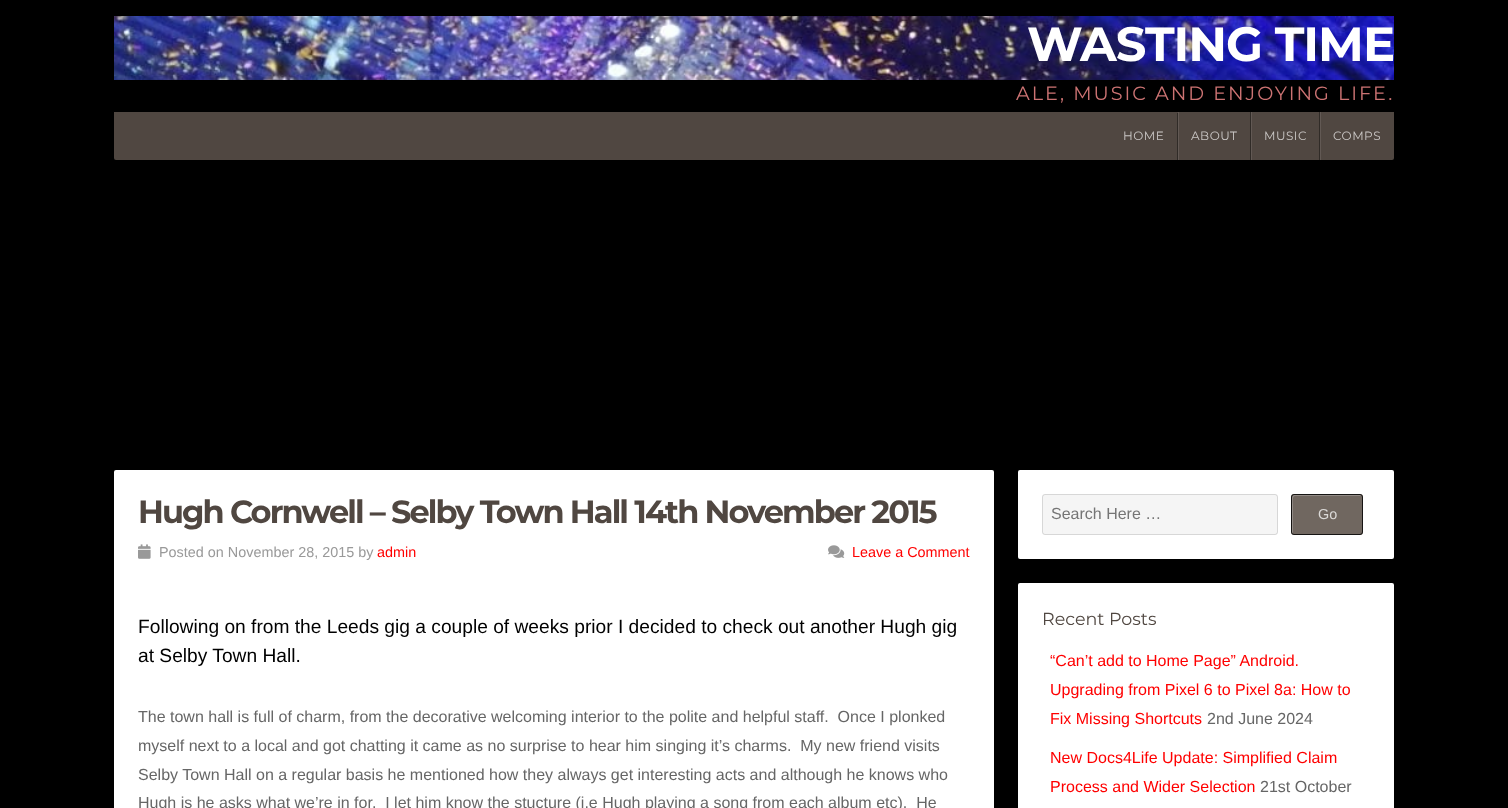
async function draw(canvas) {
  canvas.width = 1508
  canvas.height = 808
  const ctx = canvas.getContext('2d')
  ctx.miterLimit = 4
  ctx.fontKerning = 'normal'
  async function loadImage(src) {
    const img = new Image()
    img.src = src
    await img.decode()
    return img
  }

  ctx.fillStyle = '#000'
  ctx.fillRect(0, 0, 1508, 808)
  ctx.drawImage(await loadImage('image0.png'), 114, 16, 1280, 64)
  ctx.letterSpacing = '-1px'
  ctx.font = 'bold 48px Montserrat'
  ctx.fillStyle = '#fff'
  ctx.fillText('WASTING TIME', 1027, 61)
  ctx.letterSpacing = '2px'
  ctx.font = '19.2px Montserrat'
  ctx.fillStyle = '#cc7373'
  ctx.fillText('ALE, MUSIC AND ENJOYING LIFE.', 1016, 100)
  ctx.fillStyle = '#504741'
  ctx.beginPath()
  ctx.roundRect(114, 112, 1280, 48, [0, 0, 2, 2])
  ctx.fill()
  ctx.fillStyle = '#302b27'
  ctx.fillRect(1177, 113, 1, 47)
  ctx.letterSpacing = '0.5px'
  ctx.font = '12px Montserrat'
  ctx.fillStyle = '#cbc8c6'
  ctx.fillText('HOME', 1123, 140)
  ctx.fillStyle = '#302b27'
  ctx.fillRect(1250, 112, 1, 48)
  ctx.fillStyle = '#625954'
  ctx.fillRect(1178, 112, 1, 48)
  ctx.fillStyle = '#cbc8c6'
  ctx.fillText('ABOUT', 1191, 140)
  ctx.fillStyle = '#302b27'
  ctx.fillRect(1319, 112, 1, 48)
  ctx.fillStyle = '#625954'
  ctx.fillRect(1251, 112, 1, 48)
  ctx.fillStyle = '#cbc8c6'
  ctx.fillText('MUSIC', 1264, 140)
  ctx.fillStyle = '#625954'
  ctx.fillRect(1320, 112, 1, 48)
  ctx.fillStyle = '#cbc8c6'
  ctx.fillText('COMPS', 1333, 140)
  ctx.fillStyle = '#fff'
  ctx.beginPath()
  ctx.roundRect(114, 470, 880, 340, 2)
  ctx.fill()
  ctx.letterSpacing = '-1.9px'
  ctx.font = 'bold 32px Montserrat'
  ctx.fillStyle = '#504741'
  ctx.fillText('Hugh Cornwell – Selby Town Hall 14th November 2015', 138, 523)
  ctx.drawImage(await loadImage('image1.png'), 138, 544, 13, 15)
  ctx.letterSpacing = '0px'
  ctx.font = '14.4px Liberation Sans'
  ctx.fillStyle = '#999'
  ctx.fillText('Posted on November 28, 2015 by', 159, 557)
  ctx.fillStyle = '#f00'
  ctx.fillText('admin', 377, 557)
  ctx.drawImage(await loadImage('image2.png'), 828, 545, 17, 13)
  ctx.fillText('Leave a Comment', 852, 557)
  ctx.font = '19.2px Liberation Sans'
  ctx.fillStyle = '#000'
  ctx.fillText('Following on from the Leeds gig a couple of weeks prior I decided to check out another Hugh gig', 138, 633)
  ctx.fillText('at Selby Town Hall.', 138, 662)
  ctx.font = '16px Liberation Sans'
  ctx.fillStyle = '#666'
  ctx.fillText('The town hall is full of charm, from the decorative welcoming interior to the polite and helpful staff.  Once I plonked', 138, 722)
  ctx.fillText('myself next to a local and got chatting it came as no surprise to hear him singing it’s charms.  My new friend visits', 138, 751)
  ctx.fillText('Selby Town Hall on a regular basis he mentioned how they always get interesting acts and although he knows who', 138, 780)
  ctx.fillText('Hugh is he asks what we’re in for.  I let him know the stucture (i.e Hugh playing a song from each album etc).  He', 138, 808)
  ctx.fillStyle = '#fff'
  ctx.beginPath()
  ctx.roundRect(1018, 470, 376, 89, 2)
  ctx.fill()
  ctx.fillStyle = '#f5f5f5'
  ctx.beginPath()
  ctx.roundRect(1042, 494, 236, 41, 3)
  ctx.fill()
  ctx.beginPath()
  ctx.roundRect(1042.5, 494.5, 235, 40, 2.5)
  ctx.strokeStyle = '#0000001f'
  ctx.stroke()
  ctx.fillStyle = '#757575'
  ctx.fillText('Search Here …', 1051, 519)
  ctx.fillStyle = '#706760'
  ctx.beginPath()
  ctx.roundRect(1291, 494, 72, 41, 3)
  ctx.fill()
  ctx.fillStyle = '#928b86'
  ctx.beginPath()
  ctx.moveTo(1295, 496)
  ctx.lineTo(1362, 496)
  ctx.lineTo(1360, 495)
  ctx.lineTo(1305, 495)
  ctx.bezierCurveTo(1292, 495, 1292, 492, 1292, 503)
  ctx.lineTo(1292, 526)
  ctx.bezierCurveTo(1292, 527, 1291, 533, 1293, 534)
  ctx.lineTo(1293, 504)
  ctx.bezierCurveTo(1293, 503, 1292, 496, 1295, 496)
  ctx.closePath()
  ctx.fill()
  ctx.beginPath()
  ctx.roundRect(1291.5, 494.5, 71, 40, 2.5)
  ctx.strokeStyle = '#000000cc'
  ctx.stroke()
  ctx.font = '14.4px Liberation Sans'
  ctx.fillStyle = '#dbd9d7'
  ctx.fillText('Go', 1318, 519)
  ctx.fillStyle = '#fff'
  ctx.beginPath()
  ctx.roundRect(1018, 583, 376, 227, 2)
  ctx.fill()
  ctx.font = '17.5px Montserrat'
  ctx.fillStyle = '#504741'
  ctx.fillText('Recent Posts', 1042, 625)
  ctx.font = '16px Liberation Sans'
  ctx.fillStyle = '#f00'
  ctx.fillText('“Can’t add to Home Page” Android.', 1050, 666)
  ctx.fillText('Upgrading from Pixel 6 to Pixel 8a: How to', 1050, 695)
  ctx.fillText('Fix Missing Shortcuts', 1050, 724)
  ctx.fillStyle = '#666'
  ctx.fillText('2nd June 2024', 1207, 724)
  ctx.fillStyle = '#f00'
  ctx.fillText('New Docs4Life Update: Simplified Claim', 1050, 763)
  ctx.fillText('Process and Wider Selection', 1050, 792)
  ctx.fillStyle = '#666'
  ctx.fillText('21st October', 1260, 792)
}

draw(document.querySelector('canvas'))
